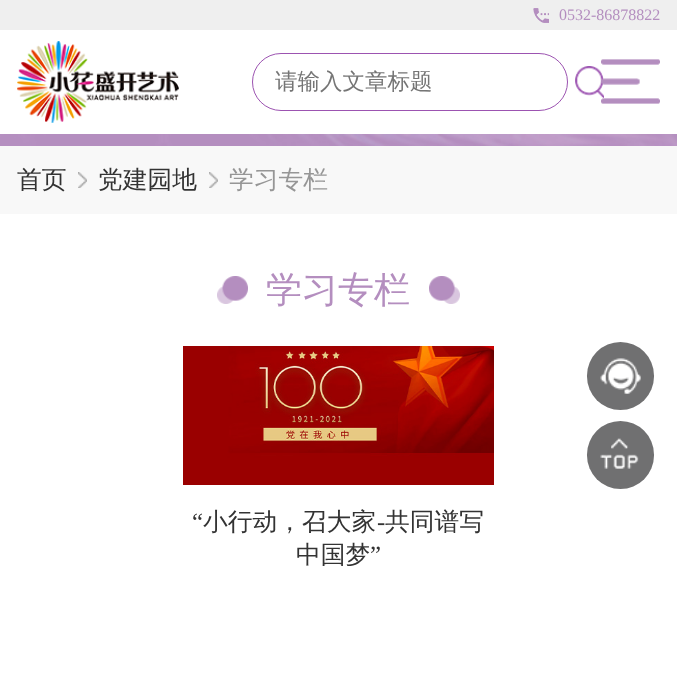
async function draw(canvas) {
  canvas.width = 677
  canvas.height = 698
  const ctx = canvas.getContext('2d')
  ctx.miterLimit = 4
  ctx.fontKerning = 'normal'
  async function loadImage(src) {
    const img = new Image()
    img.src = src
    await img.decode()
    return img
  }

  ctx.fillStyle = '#fff'
  ctx.fillRect(0, 0, 677, 698)
  ctx.fillStyle = '#efefef'
  ctx.fillRect(0, 0, 677, 30)
  ctx.drawImage(await loadImage('image0.png'), 533, 8, 16, 15)
  ctx.font = '16px Liberation Serif'
  ctx.fillStyle = '#b48ebf'
  ctx.fillText('0532-86878822', 559, 20)
  ctx.drawImage(await loadImage('image1.png'), 17, 41, 162, 82)
  ctx.beginPath()
  ctx.roundRect(252.5, 53.5, 315, 57, 28.5)
  ctx.strokeStyle = '#9c53b1'
  ctx.stroke()
  ctx.font = '500 22.5px WenQuanYi Zen Hei'
  ctx.fillStyle = '#757575'
  ctx.fillText('请输入文章标题', 275, 89)
  ctx.drawImage(await loadImage('image2.png'), 575, 66, 29, 32)
  ctx.drawImage(await loadImage('image3.png'), 601, 59, 59, 45)
  ctx.drawImage(await loadImage('image4.png'), 0, 134, 677, 12)
  ctx.fillStyle = '#f8f8f8'
  ctx.fillRect(0, 146, 677, 68)
  ctx.font = '500 24.75px WenQuanYi Zen Hei'
  ctx.fillStyle = '#333'
  ctx.fillText('首页', 17, 188)
  ctx.drawImage(await loadImage('image5.png'), 78, 172, 9, 16)
  ctx.fillText('党建园地', 98, 188)
  ctx.drawImage(await loadImage('image6.png'), 209, 172, 9, 16)
  ctx.fillStyle = '#969696'
  ctx.fillText('学习专栏', 229, 188)
  ctx.drawImage(await loadImage('image7.png'), 217, 276, 31, 28)
  ctx.font = '500 36px WenQuanYi Zen Hei'
  ctx.fillStyle = '#b48ebf'
  ctx.fillText('学习专栏', 266, 302)
  ctx.drawImage(await loadImage('image8.png'), 429, 276, 31, 28)
  ctx.drawImage(await loadImage('image9.png'), 183, 346, 311, 139)
  ctx.font = '24.75px Liberation Serif'
  ctx.fillStyle = '#333'
  ctx.fillText('“', 192, 530)
  ctx.font = '500 24.75px WenQuanYi Zen Hei'
  ctx.fillText('小行动，召大家', 203, 530)
  ctx.fillText('共同谱写', 385, 530)
  ctx.font = '24.75px Liberation Serif'
  ctx.fillText('-', 377, 530)
  ctx.font = '500 24.75px WenQuanYi Zen Hei'
  ctx.fillText('中国梦', 296, 563)
  ctx.font = '24.75px Liberation Serif'
  ctx.fillText('”', 370, 563)
  ctx.fillStyle = '#707071'
  ctx.beginPath()
  ctx.roundRect(587, 342, 67, 68, 33.5)
  ctx.fill()
  ctx.drawImage(await loadImage('image10.png'), 600, 358, 41, 36)
  ctx.beginPath()
  ctx.roundRect(587, 421, 67, 68, 33.5)
  ctx.fill()
  ctx.drawImage(await loadImage('image11.png'), 600, 438, 39, 31)
}

draw(document.querySelector('canvas'))
